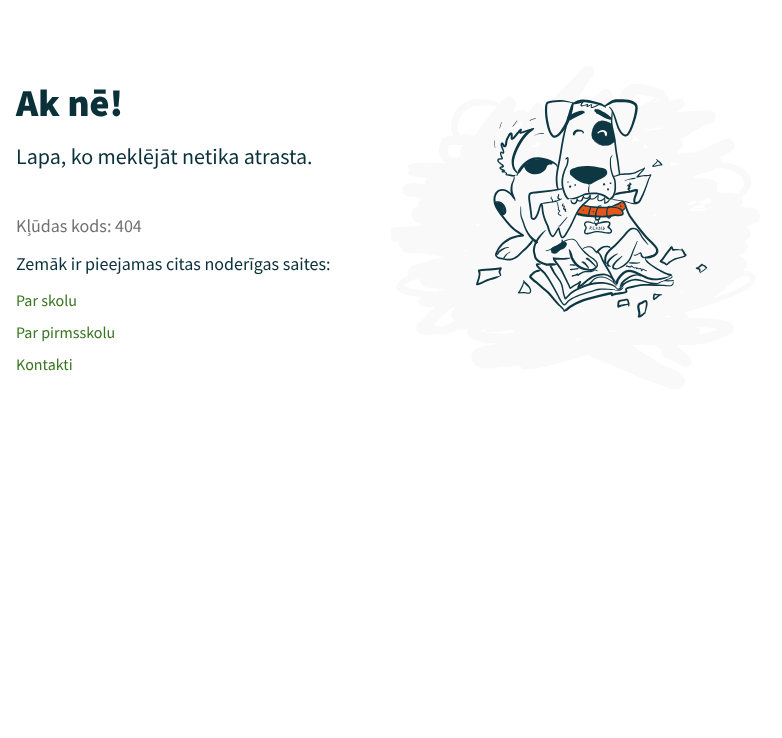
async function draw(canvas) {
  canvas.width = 782
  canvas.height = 738
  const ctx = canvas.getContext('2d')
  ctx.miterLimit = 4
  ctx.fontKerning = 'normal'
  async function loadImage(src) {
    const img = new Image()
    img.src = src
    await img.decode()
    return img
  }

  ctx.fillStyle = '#fff'
  ctx.fillRect(0, 0, 782, 738)
  ctx.font = '900 38px Source Sans Pro'
  ctx.fillStyle = '#0a303a'
  ctx.fillText('Ak nē!', 16, 116)
  ctx.font = '22px Source Sans Pro'
  ctx.fillText('Lapa, ko meklējāt netika atrasta.', 16, 164)
  ctx.font = '18px Source Sans Pro'
  ctx.fillStyle = '#717171'
  ctx.fillText('Kļūdas kods: 404', 16, 232)
  ctx.fillStyle = '#0a303a'
  ctx.fillText('Zemāk ir pieejamas citas noderīgas saites:', 16, 270)
  ctx.font = '16px Source Sans Pro'
  ctx.fillStyle = '#387621'
  ctx.fillText('Par skolu', 16, 306)
  ctx.fillText('Par pirmsskolu', 16, 338)
  ctx.fillText('Kontakti', 16, 370)
  ctx.drawImage(await loadImage('image0.png'), 391, 66, 369, 323)
}

draw(document.querySelector('canvas'))
